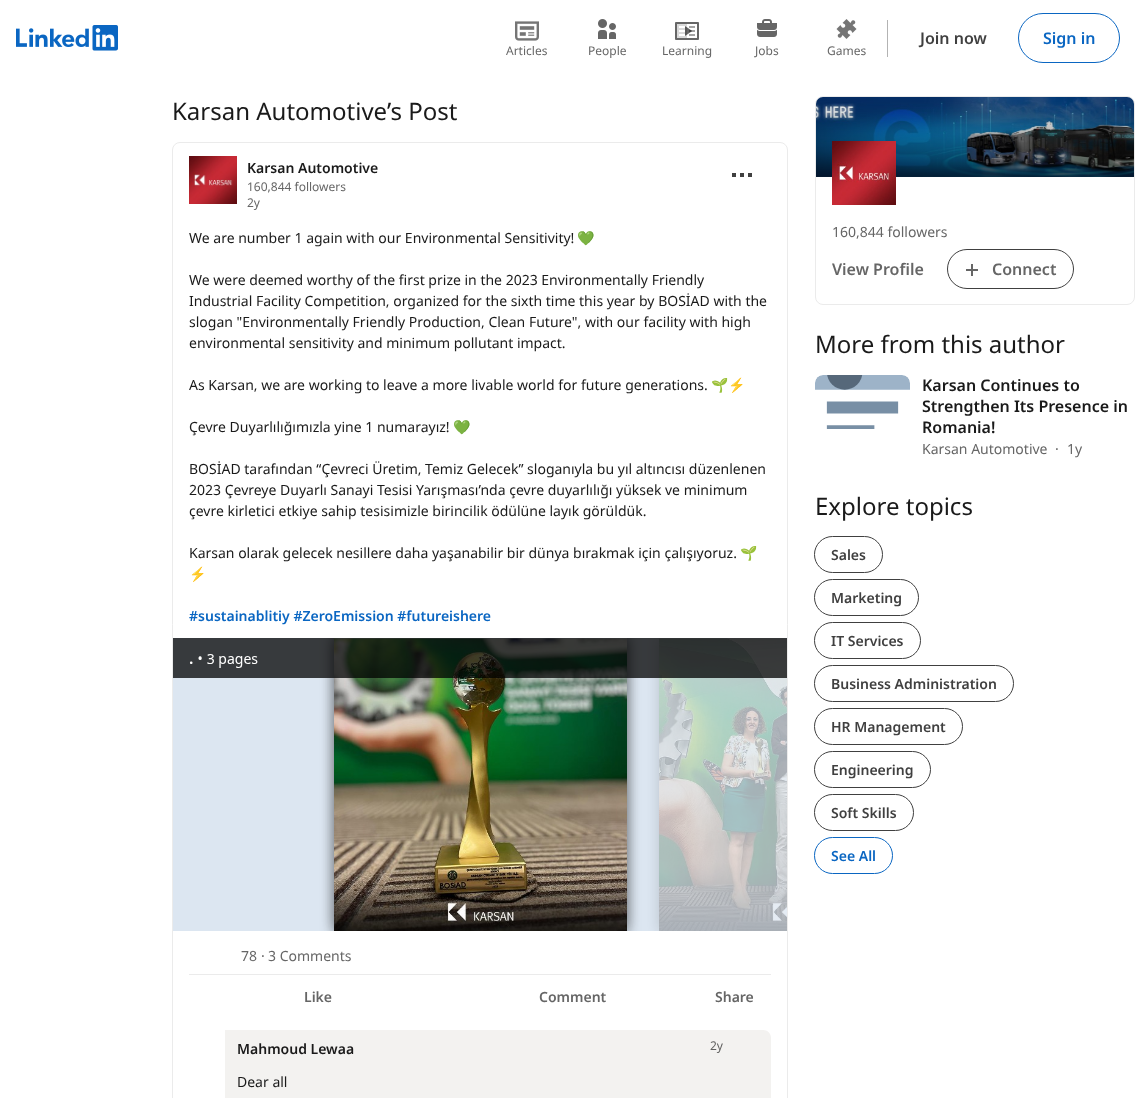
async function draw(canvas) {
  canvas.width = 1135
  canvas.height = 1098
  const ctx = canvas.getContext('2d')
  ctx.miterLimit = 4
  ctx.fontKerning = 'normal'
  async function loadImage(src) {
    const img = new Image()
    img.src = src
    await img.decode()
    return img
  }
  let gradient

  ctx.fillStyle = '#fff'
  ctx.fillRect(0, 0, 1135, 1098)
  ctx.drawImage(await loadImage('image0.png'), 16, 25, 102, 26)
  ctx.font = '600 16px Noto Sans'
  ctx.fillStyle = '#404040'
  ctx.fillText('Join now', 920, 44)
  ctx.beginPath()
  ctx.roundRect(1018.5, 13.5, 101, 49, 24.5)
  ctx.strokeStyle = '#0a66c2'
  ctx.stroke()
  ctx.fillStyle = '#0a66c2'
  ctx.fillText('Sign in', 1043, 44)
  ctx.drawImage(await loadImage('image1.png'), 515, 21, 24, 20)
  ctx.font = '12px Noto Sans'
  ctx.fillStyle = '#666'
  ctx.fillText('Articles', 506, 55)
  ctx.drawImage(await loadImage('image2.png'), 598, 19, 18, 20)
  ctx.fillText('People', 588, 55)
  ctx.drawImage(await loadImage('image3.png'), 675, 22, 24, 18)
  ctx.fillText('Learning', 662, 55)
  ctx.drawImage(await loadImage('image4.png'), 757, 19, 20, 18)
  ctx.fillText('Jobs', 755, 55)
  ctx.drawImage(await loadImage('image5.png'), 836, 19, 21, 20)
  ctx.fillText('Games', 827, 55)
  ctx.fillStyle = '#b3b3b3'
  ctx.fillRect(887, 20, 1, 37)
  ctx.font = '24px Noto Sans'
  ctx.fillStyle = '#1a1a1a'
  ctx.fillText('Karsan Automotive’s Post', 172, 120)
  ctx.beginPath()
  ctx.roundRect(172.5, 142.5, 615, 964, 7.5)
  ctx.strokeStyle = '#ebebeb'
  ctx.stroke()
  ctx.drawImage(await loadImage('image6.png'), 189, 156, 48, 48)
  ctx.font = '600 14px Noto Sans'
  ctx.fillText('Karsan Automotive', 247, 173)
  ctx.font = '12px Noto Sans'
  ctx.fillStyle = '#666'
  ctx.fillText('160,844 followers', 247, 191)
  ctx.fillText('2y', 247, 207)
  ctx.drawImage(await loadImage('image7.png'), 732, 173, 20, 4)
  ctx.font = '14px Noto Sans'
  ctx.fillStyle = '#1a1a1a'
  ctx.fillText('We are number 1 again with our Environmental Sensitivity!', 189, 243)
  ctx.font = '14px Noto Color Emoji'
  ctx.fillText('💚', 577, 243)
  ctx.font = '14px Noto Sans'
  ctx.fillText('We were deemed worthy of the first prize in the 2023 Environmentally Friendly', 189, 285)
  ctx.fillText('Industrial Facility Competition, organized for the sixth time this year by BOSİAD with the', 189, 306)
  ctx.fillText('slogan "Environmentally Friendly Production, Clean Future", with our facility with high', 189, 327)
  ctx.fillText('environmental sensitivity and minimum pollutant impact.', 189, 348)
  ctx.fillText('As Karsan, we are working to leave a more livable world for future generations.', 189, 390)
  ctx.font = '14px Noto Color Emoji'
  ctx.fillText('🌱⚡', 711, 390)
  ctx.font = '14px Noto Sans'
  ctx.fillText('Çevre Duyarlılığımızla yine 1 numarayız!', 189, 432)
  ctx.font = '14px Noto Color Emoji'
  ctx.fillText('💚', 453, 432)
  ctx.font = '14px Noto Sans'
  ctx.fillText('BOSİAD tarafından “Çevreci Üretim, Temiz Gelecek” sloganıyla bu yıl altıncısı düzenlenen', 189, 474)
  ctx.fillText('2023 Çevreye Duyarlı Sanayi Tesisi Yarışması’nda çevre duyarlılığı yüksek ve minimum', 189, 495)
  ctx.fillText('çevre kirletici etkiye sahip tesisimizle birincilik ödülüne layık görüldük.', 189, 516)
  ctx.fillText('Karsan olarak gelecek nesillere daha yaşanabilir bir dünya bırakmak için çalışıyoruz.', 189, 558)
  ctx.font = '14px Noto Color Emoji'
  ctx.fillText('🌱', 740, 558)
  ctx.fillText('⚡', 189, 579)
  ctx.font = '600 14px Noto Sans'
  ctx.fillStyle = '#0a66c2'
  ctx.fillText('#sustainablitiy #ZeroEmission #futureishere', 189, 621)
  ctx.drawImage(await loadImage('image8.png'), 173, 638, 614, 293)
  ctx.font = '14px Noto Sans'
  ctx.fillStyle = '#666'
  ctx.fillText('78', 241, 961)
  ctx.fillText('·', 261, 961)
  ctx.fillText('3 Comments', 268, 961)
  ctx.fillStyle = '#ebebeb'
  ctx.fillRect(189, 974, 582, 1)
  ctx.font = '600 14px Noto Sans'
  ctx.fillStyle = '#666'
  ctx.fillText('Like', 304, 1002)
  ctx.fillText('Comment', 539, 1002)
  ctx.fillText('Share', 715, 1002)
  ctx.fillStyle = '#f3f2f0'
  ctx.beginPath()
  ctx.moveTo(225, 1030)
  ctx.lineTo(763, 1030)
  ctx.bezierCurveTo(767.5, 1030, 771, 1033.5, 771, 1038)
  ctx.lineTo(771, 1098)
  ctx.bezierCurveTo(771, 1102.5, 767.5, 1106, 763, 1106)
  ctx.lineTo(233, 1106)
  ctx.bezierCurveTo(228.5, 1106, 225, 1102.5, 225, 1098)
  ctx.closePath()
  ctx.fill()
  ctx.fillStyle = '#1a1a1a'
  ctx.fillText('Mahmoud Lewaa', 237, 1054)
  ctx.font = '12px Noto Sans'
  ctx.fillStyle = '#616160'
  ctx.fillText('2y', 710, 1050)
  ctx.font = '14px Noto Sans'
  ctx.fillStyle = '#1a1a1a'
  ctx.fillText('Dear all', 237, 1087)
  ctx.beginPath()
  ctx.roundRect(815.5, 96.5, 319, 208, 7.5)
  ctx.stroke()
  ctx.drawImage(await loadImage('image9.png'), 816, 97, 318, 80)
  gradient = ctx.createLinearGradient(975, 97, 975, 177)
  gradient.addColorStop(0, '#00000000')
  gradient.addColorStop(1, '#00000099')
  ctx.fillStyle = gradient
  ctx.fillRect(816, 100, 318, 77)
  ctx.drawImage(await loadImage('image10.png'), 832, 141, 64, 64)
  ctx.fillStyle = '#666'
  ctx.fillText('160,844 followers', 832, 237)
  ctx.font = '600 16px Noto Sans'
  ctx.fillText('View Profile', 832, 275)
  ctx.beginPath()
  ctx.roundRect(947.5, 249.5, 126, 39, 19.5)
  ctx.strokeStyle = '#404040'
  ctx.stroke()
  ctx.drawImage(await loadImage('image11.png'), 966, 264, 12, 12)
  ctx.fillText('Connect', 992, 275)
  ctx.font = '24px Noto Sans'
  ctx.fillStyle = '#1a1a1a'
  ctx.fillText('More from this author', 815, 353)
  ctx.drawImage(await loadImage('image12.png'), 815, 375, 95, 54)
  ctx.font = '600 16px Noto Sans'
  ctx.fillText('Karsan Continues to', 922, 391)
  ctx.fillText('Strengthen Its Presence in', 922, 412)
  ctx.fillText('Romania!', 922, 433)
  ctx.font = '14px Noto Sans'
  ctx.fillStyle = '#666'
  ctx.fillText('Karsan Automotive', 922, 454)
  ctx.fillText('·', 1055, 454)
  ctx.fillText('1y', 1067, 454)
  ctx.font = '24px Noto Sans'
  ctx.fillStyle = '#1a1a1a'
  ctx.fillText('Explore topics', 815, 515)
  ctx.beginPath()
  ctx.roundRect(814.5, 536.5, 68, 36, 18)
  ctx.stroke()
  ctx.font = '600 14px Noto Sans'
  ctx.fillStyle = '#404040'
  ctx.fillText('Sales', 831, 560)
  ctx.beginPath()
  ctx.roundRect(814.5, 579.5, 104, 36, 18)
  ctx.stroke()
  ctx.fillText('Marketing', 831, 603)
  ctx.beginPath()
  ctx.roundRect(814.5, 622.5, 106, 36, 18)
  ctx.stroke()
  ctx.fillText('IT Services', 831, 646)
  ctx.beginPath()
  ctx.roundRect(814.5, 665.5, 199, 36, 18)
  ctx.stroke()
  ctx.fillText('Business Administration', 831, 689)
  ctx.beginPath()
  ctx.roundRect(814.5, 708.5, 148, 36, 18)
  ctx.stroke()
  ctx.fillText('HR Management', 831, 732)
  ctx.beginPath()
  ctx.roundRect(814.5, 751.5, 116, 36, 18)
  ctx.stroke()
  ctx.fillText('Engineering', 831, 775)
  ctx.beginPath()
  ctx.roundRect(814.5, 794.5, 99, 36, 18)
  ctx.stroke()
  ctx.fillText('Soft Skills', 831, 818)
  ctx.beginPath()
  ctx.roundRect(814.5, 837.5, 78, 36, 18)
  ctx.strokeStyle = '#0a66c2'
  ctx.stroke()
  ctx.fillStyle = '#0a66c2'
  ctx.fillText('See All', 831, 861)
}

draw(document.querySelector('canvas'))
